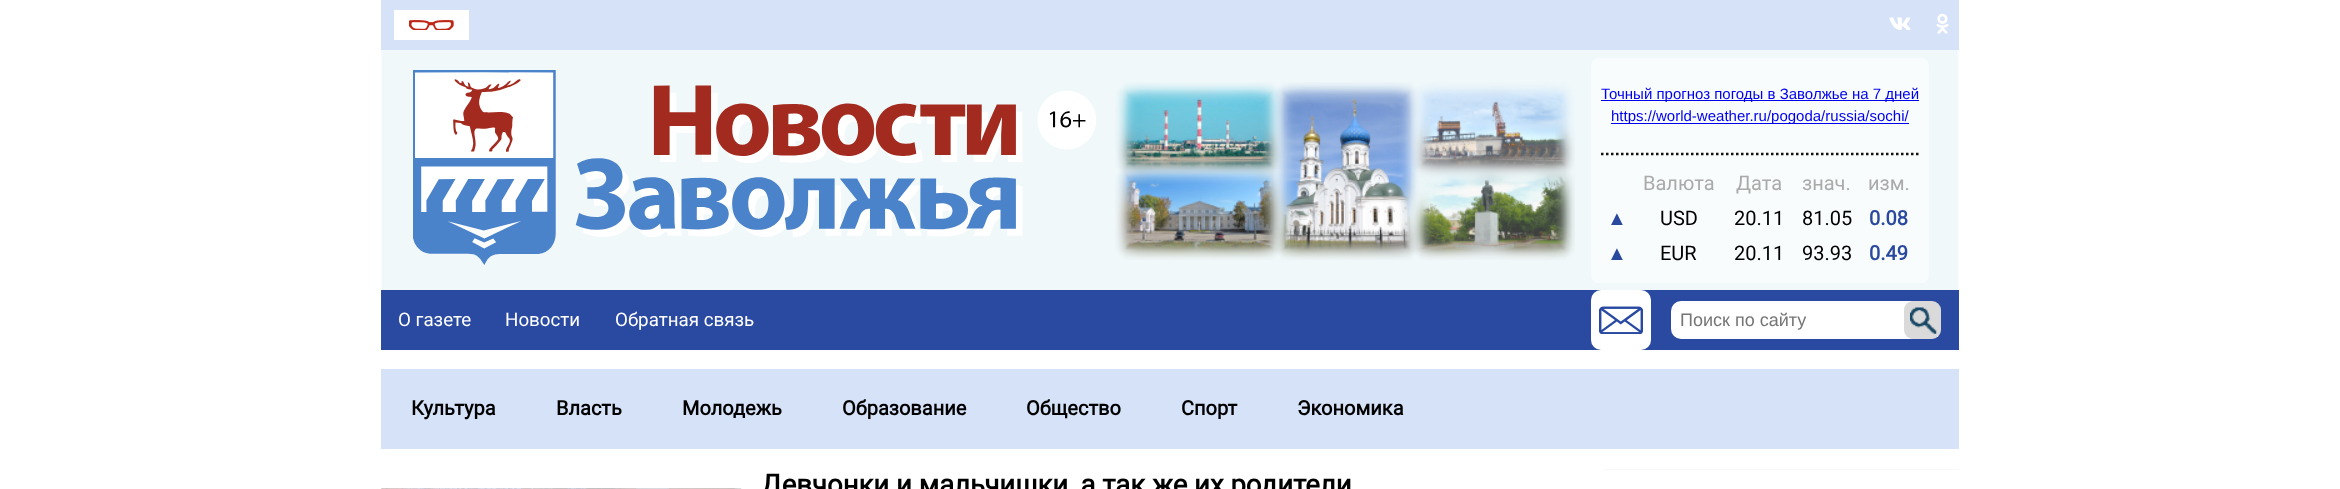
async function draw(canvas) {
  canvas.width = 2340
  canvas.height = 489
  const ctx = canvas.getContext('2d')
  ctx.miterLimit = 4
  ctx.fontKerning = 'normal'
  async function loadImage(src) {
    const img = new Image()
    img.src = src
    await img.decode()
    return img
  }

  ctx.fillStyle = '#fff'
  ctx.fillRect(0, 0, 2340, 489)
  ctx.fillStyle = '#d6e2f8'
  ctx.fillRect(381, 0, 1578, 50)
  ctx.fillStyle = '#fff'
  ctx.fillRect(394, 10, 75, 30)
  ctx.drawImage(await loadImage('image0.png'), 409, 20, 45, 10)
  ctx.drawImage(await loadImage('image1.png'), 1889, 17, 22, 13)
  ctx.drawImage(await loadImage('image2.png'), 1936, 13, 13, 21)
  ctx.drawImage(await loadImage('image3.png'), 381, 50, 1578, 240)
  ctx.drawImage(await loadImage('image4.png'), 413, 70, 683, 195)
  ctx.drawImage(await loadImage('image5.png'), 1115, 82, 460, 178)
  ctx.fillStyle = '#f9fcfd'
  ctx.beginPath()
  ctx.roundRect(1591, 58, 338, 225, 8)
  ctx.fill()
  ctx.beginPath()
  ctx.moveTo(1601, 154)
  ctx.lineTo(1919, 154)
  ctx.strokeStyle = '#121210'
  ctx.lineWidth = 2.5
  ctx.setLineDash([2.5, 2.5])
  ctx.stroke()
  ctx.fillStyle = '#00e'
  ctx.fillRect(1601, 100, 318, 1)
  ctx.font = '15px Liberation Sans'
  ctx.fillText('Точный прогноз погоды в Заволжье на 7 дней', 1601, 99)
  ctx.fillRect(1611, 123, 298, 1)
  ctx.fillText('https://world-weather.ru/pogoda/russia/sochi/', 1611, 121)
  ctx.font = '20px Roboto'
  ctx.fillStyle = '#aaa'
  ctx.fillText('Валюта', 1643, 190)
  ctx.fillText('Дата', 1736, 190)
  ctx.fillText('знач.', 1802, 190)
  ctx.fillText('изм.', 1868, 190)
  ctx.font = '20px Liberation Serif'
  ctx.fillStyle = '#29499e'
  ctx.fillText('▲', 1607, 225)
  ctx.font = '20px Roboto'
  ctx.fillStyle = '#000'
  ctx.fillText('USD', 1660, 225)
  ctx.fillText('20.11', 1734, 225)
  ctx.fillText('81.05', 1802, 225)
  ctx.font = 'bold 20px Roboto'
  ctx.fillStyle = '#29499e'
  ctx.fillText('0.08', 1869, 225)
  ctx.font = '20px Liberation Serif'
  ctx.fillText('▲', 1607, 260)
  ctx.font = '20px Roboto'
  ctx.fillStyle = '#000'
  ctx.fillText('EUR', 1660, 260)
  ctx.fillText('20.11', 1734, 260)
  ctx.fillText('93.93', 1802, 260)
  ctx.font = 'bold 20px Roboto'
  ctx.fillStyle = '#29499e'
  ctx.fillText('0.49', 1869, 260)
  ctx.fillStyle = '#2a4aa1'
  ctx.fillRect(381, 290, 1578, 60)
  ctx.font = '18.75px Roboto'
  ctx.fillStyle = '#fff'
  ctx.fillText('О газете', 398, 326)
  ctx.fillText('Новости', 505, 326)
  ctx.fillText('Обратная связь', 615, 326)
  ctx.beginPath()
  ctx.roundRect(1591, 290, 60, 60, 10)
  ctx.fill()
  ctx.drawImage(await loadImage('image6.png'), 1599, 306, 44, 28)
  ctx.beginPath()
  ctx.roundRect(1671, 301, 250, 38, 10)
  ctx.fill()
  ctx.font = '18px Liberation Sans'
  ctx.fillStyle = '#757575'
  ctx.fillText('Поиск по сайту', 1680, 326)
  ctx.fillStyle = '#dadada'
  ctx.beginPath()
  ctx.roundRect(1904, 301, 37, 38, 9)
  ctx.fill()
  ctx.drawImage(await loadImage('image7.png'), 1910, 307, 27, 27)
  ctx.fillStyle = '#d6e2f8'
  ctx.fillRect(381, 369, 1578, 80)
  ctx.font = 'bold 20px Roboto'
  ctx.fillStyle = '#000'
  ctx.fillText('Культура', 411, 415)
  ctx.fillText('Власть', 556, 415)
  ctx.fillText('Молодежь', 682, 415)
  ctx.fillText('Образование', 842, 415)
  ctx.fillText('Общество', 1026, 415)
  ctx.fillText('Спорт', 1181, 415)
  ctx.fillText('Экономика', 1297, 415)
  ctx.drawImage(await loadImage('image8.png'), 381, 488, 361, 1)
  ctx.fillStyle = '#f8f7fb'
  ctx.fillRect(1604, 469, 355, 1)
  ctx.font = 'bold 27.5px Roboto'
  ctx.fillStyle = '#000'
  ctx.fillText('Девчонки и мальчишки, а так же их родители', 761, 494)
}

draw(document.querySelector('canvas'))
